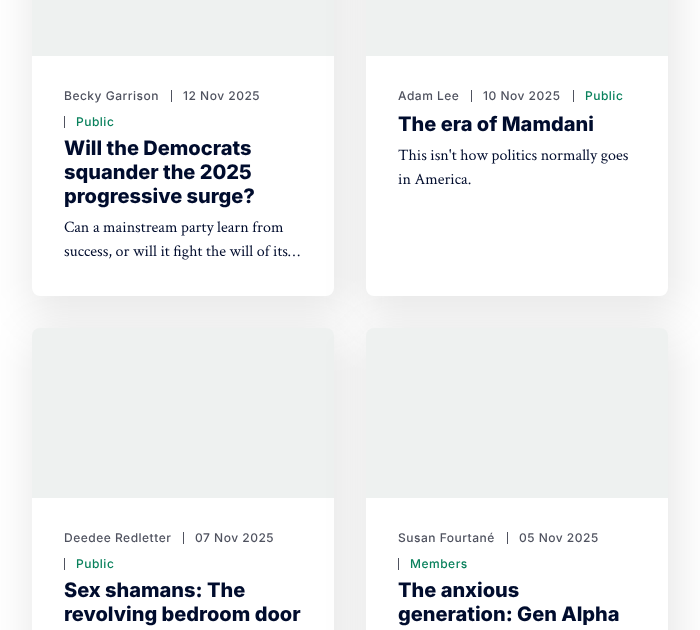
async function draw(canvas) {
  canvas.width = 700
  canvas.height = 630
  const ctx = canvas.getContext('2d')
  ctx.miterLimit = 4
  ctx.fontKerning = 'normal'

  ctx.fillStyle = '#fff'
  ctx.fillRect(0, 0, 700, 630)
  ctx.fillStyle = '#00000017'
  ctx.filter = 'blur(20px)'
  ctx.beginPath()
  ctx.roundRect(30, -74, 314, 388, 14)
  ctx.fill()
  ctx.filter = 'none'
  ctx.fillStyle = '#eef1f0'
  ctx.beginPath()
  ctx.roundRect(32, -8, 302, 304, 8)
  ctx.fill()
  ctx.fillStyle = '#fff'
  ctx.beginPath()
  ctx.roundRect(32, 56, 302, 240, [0, 0, 8, 8])
  ctx.fill()
  ctx.letterSpacing = '0.5px'
  ctx.font = '500 12px Inter'
  ctx.fillStyle = '#4f525f'
  ctx.fillText('Becky Garrison', 64, 100)
  ctx.fillRect(171, 90, 1, 12)
  ctx.fillText('12 Nov 2025', 183, 100)
  ctx.fillRect(64, 116, 1, 12)
  ctx.fillStyle = '#09815c'
  ctx.fillText('Public', 76, 126)
  ctx.letterSpacing = '0px'
  ctx.font = '800 20px Inter'
  ctx.fillStyle = '#000c2d'
  ctx.fillText('Will the Democrats', 64, 155)
  ctx.fillText('squander the 2025', 64, 179)
  ctx.fillText('progressive surge?', 64, 203)
  ctx.font = '16px Crimson Text'
  ctx.fillText('Can a mainstream party learn from', 64, 232)
  ctx.fillText('success, or will it fight the will of its…', 64, 256)
  ctx.fillStyle = '#00000017'
  ctx.filter = 'blur(20px)'
  ctx.beginPath()
  ctx.roundRect(364, -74, 314, 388, 14)
  ctx.fill()
  ctx.filter = 'none'
  ctx.fillStyle = '#eef1f0'
  ctx.beginPath()
  ctx.roundRect(366, -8, 302, 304, 8)
  ctx.fill()
  ctx.fillStyle = '#fff'
  ctx.beginPath()
  ctx.roundRect(366, 56, 302, 240, [0, 0, 8, 8])
  ctx.fill()
  ctx.letterSpacing = '0.5px'
  ctx.font = '500 12px Inter'
  ctx.fillStyle = '#4f525f'
  ctx.fillText('Adam Lee', 398, 100)
  ctx.fillRect(471, 90, 1, 12)
  ctx.fillText('10 Nov 2025', 483, 100)
  ctx.fillRect(573, 90, 1, 12)
  ctx.fillStyle = '#09815c'
  ctx.fillText('Public', 585, 100)
  ctx.letterSpacing = '0px'
  ctx.font = '800 20px Inter'
  ctx.fillStyle = '#000c2d'
  ctx.fillText('The era of Mamdani', 398, 131)
  ctx.font = '16px Crimson Text'
  ctx.fillText('This isn\'t how politics normally goes', 398, 160)
  ctx.fillText('in America.', 398, 184)
  ctx.fillStyle = '#00000017'
  ctx.filter = 'blur(20px)'
  ctx.beginPath()
  ctx.roundRect(30, 334, 314, 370, 14)
  ctx.fill()
  ctx.filter = 'none'
  ctx.fillStyle = '#eef1f0'
  ctx.beginPath()
  ctx.roundRect(32, 328, 302, 170, [8, 8, 0, 0])
  ctx.fill()
  ctx.fillStyle = '#fff'
  ctx.fillRect(32, 498, 302, 132)
  ctx.letterSpacing = '0.5px'
  ctx.font = '500 12px Inter'
  ctx.fillStyle = '#4f525f'
  ctx.fillText('Deedee Redletter', 64, 542)
  ctx.fillRect(183, 532, 1, 12)
  ctx.fillText('07 Nov 2025', 195, 542)
  ctx.fillRect(64, 558, 1, 12)
  ctx.fillStyle = '#09815c'
  ctx.fillText('Public', 76, 568)
  ctx.letterSpacing = '0px'
  ctx.font = '800 20px Inter'
  ctx.fillStyle = '#000c2d'
  ctx.fillText('Sex shamans: The', 64, 597)
  ctx.fillText('revolving bedroom door', 64, 621)
  ctx.fillStyle = '#00000017'
  ctx.filter = 'blur(20px)'
  ctx.beginPath()
  ctx.roundRect(364, 334, 314, 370, 14)
  ctx.fill()
  ctx.filter = 'none'
  ctx.fillStyle = '#eef1f0'
  ctx.beginPath()
  ctx.roundRect(366, 328, 302, 170, [8, 8, 0, 0])
  ctx.fill()
  ctx.fillStyle = '#fff'
  ctx.fillRect(366, 498, 302, 132)
  ctx.letterSpacing = '0.5px'
  ctx.font = '500 12px Inter'
  ctx.fillStyle = '#4f525f'
  ctx.fillText('Susan Fourtané', 398, 542)
  ctx.fillRect(507, 532, 1, 12)
  ctx.fillText('05 Nov 2025', 519, 542)
  ctx.fillRect(398, 558, 1, 12)
  ctx.fillStyle = '#09815c'
  ctx.fillText('Members', 410, 568)
  ctx.letterSpacing = '0px'
  ctx.font = '800 20px Inter'
  ctx.fillStyle = '#000c2d'
  ctx.fillText('The anxious', 398, 597)
  ctx.fillText('generation: Gen Alpha', 398, 621)
}

draw(document.querySelector('canvas'))
